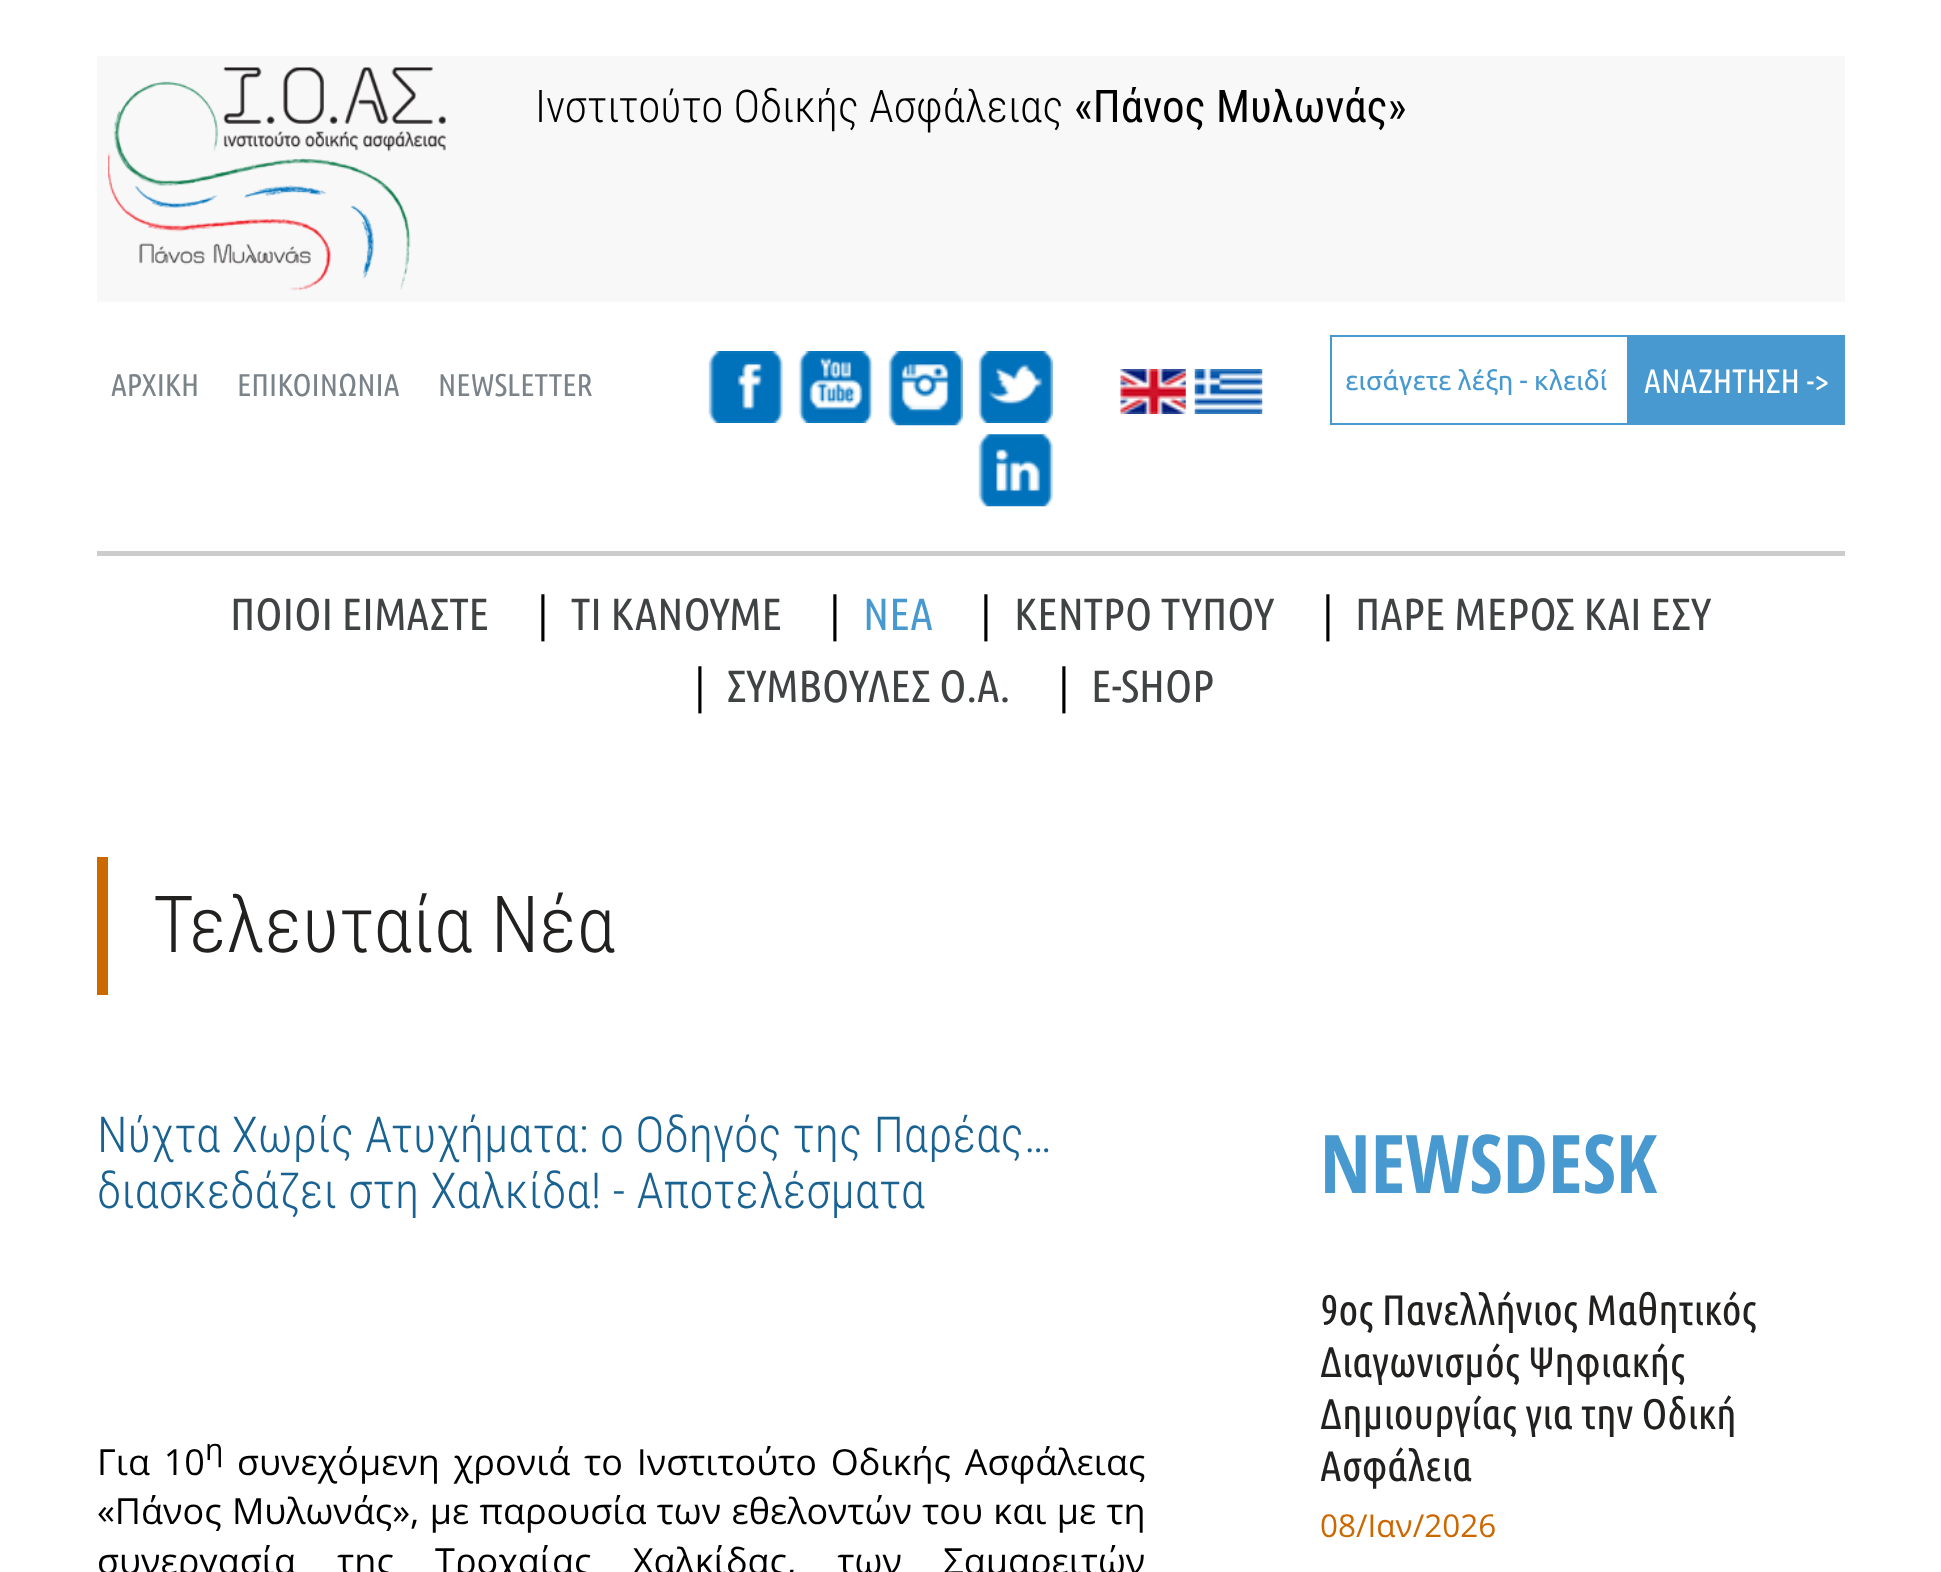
async function draw(canvas) {
  canvas.width = 1941
  canvas.height = 1572
  const ctx = canvas.getContext('2d')
  ctx.miterLimit = 4
  ctx.fontKerning = 'normal'
  async function loadImage(src) {
    const img = new Image()
    img.src = src
    await img.decode()
    return img
  }

  ctx.fillStyle = '#fff'
  ctx.fillRect(0, 0, 1941, 1572)
  ctx.fillStyle = '#f8f8f8'
  ctx.fillRect(97, 56, 1748, 246)
  ctx.drawImage(await loadImage('image0.png'), 108, 67, 338, 224)
  ctx.font = '300 45px Roboto Condensed'
  ctx.fillStyle = '#000'
  ctx.fillText('Ινστιτούτο Οδικής Ασφάλειας', 535, 122)
  ctx.font = '45px Roboto Condensed'
  ctx.fillText('«Πάνος Μυλωνάς»', 1074, 122)
  ctx.fillStyle = '#ccc'
  ctx.fillRect(97, 551, 1748, 5)
  ctx.font = '31.5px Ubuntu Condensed'
  ctx.fillStyle = '#7b838a'
  ctx.fillText('ΑΡΧΙΚΗ', 111, 396)
  ctx.fillText('ΕΠΙΚΟΙΝΩΝΙΑ', 237, 396)
  ctx.fillText('NEWSLETTER', 438, 396)
  ctx.drawImage(await loadImage('image1.png'), 708, 351, 75, 72)
  ctx.drawImage(await loadImage('image2.png'), 798, 351, 75, 72)
  ctx.drawImage(await loadImage('image3.png'), 888, 351, 75, 75)
  ctx.drawImage(await loadImage('image4.png'), 978, 351, 75, 72)
  ctx.drawImage(await loadImage('image5.png'), 978, 434, 75, 73)
  ctx.drawImage(await loadImage('image6.png'), 1120, 369, 66, 45)
  ctx.drawImage(await loadImage('image7.png'), 1194, 369, 69, 45)
  ctx.strokeStyle = '#4799cf'
  ctx.lineWidth = 2
  ctx.strokeRect(1331, 336, 297, 88)
  ctx.font = '27px Ubuntu'
  ctx.fillStyle = '#4799cf'
  ctx.fillText('εισάγετε λέξη - κλειδί', 1345, 390)
  ctx.fillRect(1629, 335, 216, 90)
  ctx.font = '33.75px Ubuntu Condensed'
  ctx.fillStyle = '#fff'
  ctx.fillText('ΑΝΑΖΗΤΗΣΗ ->', 1644, 393)
  ctx.font = '45px Ubuntu Condensed'
  ctx.fillStyle = '#404344'
  ctx.fillText('ΠΟΙΟΙ ΕΙΜΑΣΤΕ', 230, 630)
  ctx.font = '47px Open Sans'
  ctx.fillStyle = '#000'
  ctx.fillText('|', 530, 630)
  ctx.font = '45px Ubuntu Condensed'
  ctx.fillStyle = '#404344'
  ctx.fillText('TI KANOYME', 571, 630)
  ctx.font = '47px Open Sans'
  ctx.fillStyle = '#000'
  ctx.fillText('|', 822, 630)
  ctx.font = '45px Ubuntu Condensed'
  ctx.fillStyle = '#4799cf'
  ctx.fillText('ΝΕΑ', 863, 630)
  ctx.font = '47px Open Sans'
  ctx.fillStyle = '#000'
  ctx.fillText('|', 973, 630)
  ctx.font = '45px Ubuntu Condensed'
  ctx.fillStyle = '#404344'
  ctx.fillText('ΚΕΝΤΡΟ ΤΥΠΟΥ', 1014, 630)
  ctx.font = '47px Open Sans'
  ctx.fillStyle = '#000'
  ctx.fillText('|', 1315, 630)
  ctx.font = '45px Ubuntu Condensed'
  ctx.fillStyle = '#404344'
  ctx.fillText('ΠΑΡΕ ΜΕΡΟΣ ΚΑΙ ΕΣΥ', 1355, 630)
  ctx.font = '47px Open Sans'
  ctx.fillStyle = '#000'
  ctx.fillText('|', 687, 702)
  ctx.font = '45px Ubuntu Condensed'
  ctx.fillStyle = '#404344'
  ctx.fillText('ΣΥΜΒΟΥΛΕΣ Ο.Α.', 727, 702)
  ctx.font = '47px Open Sans'
  ctx.fillStyle = '#000'
  ctx.fillText('|', 1051, 702)
  ctx.font = '45px Ubuntu Condensed'
  ctx.fillStyle = '#404344'
  ctx.fillText('E-SHOP', 1091, 702)
  ctx.fillStyle = '#cc6800'
  ctx.fillRect(97, 857, 11, 138)
  ctx.font = '300 78.75px Roboto Condensed'
  ctx.fillStyle = '#222120'
  ctx.fillText('Τελευταία Νέα', 153, 952)
  ctx.font = '300 49.5px Roboto Condensed'
  ctx.fillStyle = '#1a6291'
  ctx.fillText('Νύχτα Χωρίς Ατυχήματα: o Οδηγός της Παρέας…', 97, 1152)
  ctx.fillText('διασκεδάζει στη Χαλκίδα! - Αποτελέσματα', 97, 1208)
  ctx.wordSpacing = '4.5px'
  ctx.font = '36px Open Sans'
  ctx.fillStyle = '#000'
  ctx.fillText('Για 10', 97, 1475)
  ctx.wordSpacing = '0px'
  ctx.font = '30px Open Sans'
  ctx.fillText('η', 205, 1460)
  ctx.wordSpacing = '4.5px'
  ctx.font = '36px Open Sans'
  ctx.fillText('συνεχόμενη χρονιά το Ινστιτούτο Οδικής Ασφάλειας', 237, 1475)
  ctx.wordSpacing = '1px'
  ctx.fillText('«Πάνος Μυλωνάς», με παρουσία των εθελοντών του και με τη', 97, 1524)
  ctx.wordSpacing = '32px'
  ctx.fillText('συνεργασία της Τροχαίας Χαλκίδας, των Σαμαρειτών', 97, 1574)
  ctx.wordSpacing = '0px'
  ctx.font = 'bold 81px Open Sans Condensed'
  ctx.fillStyle = '#4799cf'
  ctx.fillText('NEWSDESK', 1320, 1193)
  ctx.font = '42.75px Ubuntu Condensed'
  ctx.fillStyle = '#222120'
  ctx.fillText('9ος Πανελλήνιος Μαθητικός', 1320, 1325)
  ctx.fillText('Διαγωνισμός Ψηφιακής', 1320, 1377)
  ctx.fillText('Δημιουργίας για την Οδική', 1320, 1429)
  ctx.fillText('Ασφάλεια', 1320, 1481)
  ctx.font = '31.5px Open Sans'
  ctx.fillStyle = '#cc6800'
  ctx.fillText('08/Ιαν/2026', 1320, 1537)
}

draw(document.querySelector('canvas'))
